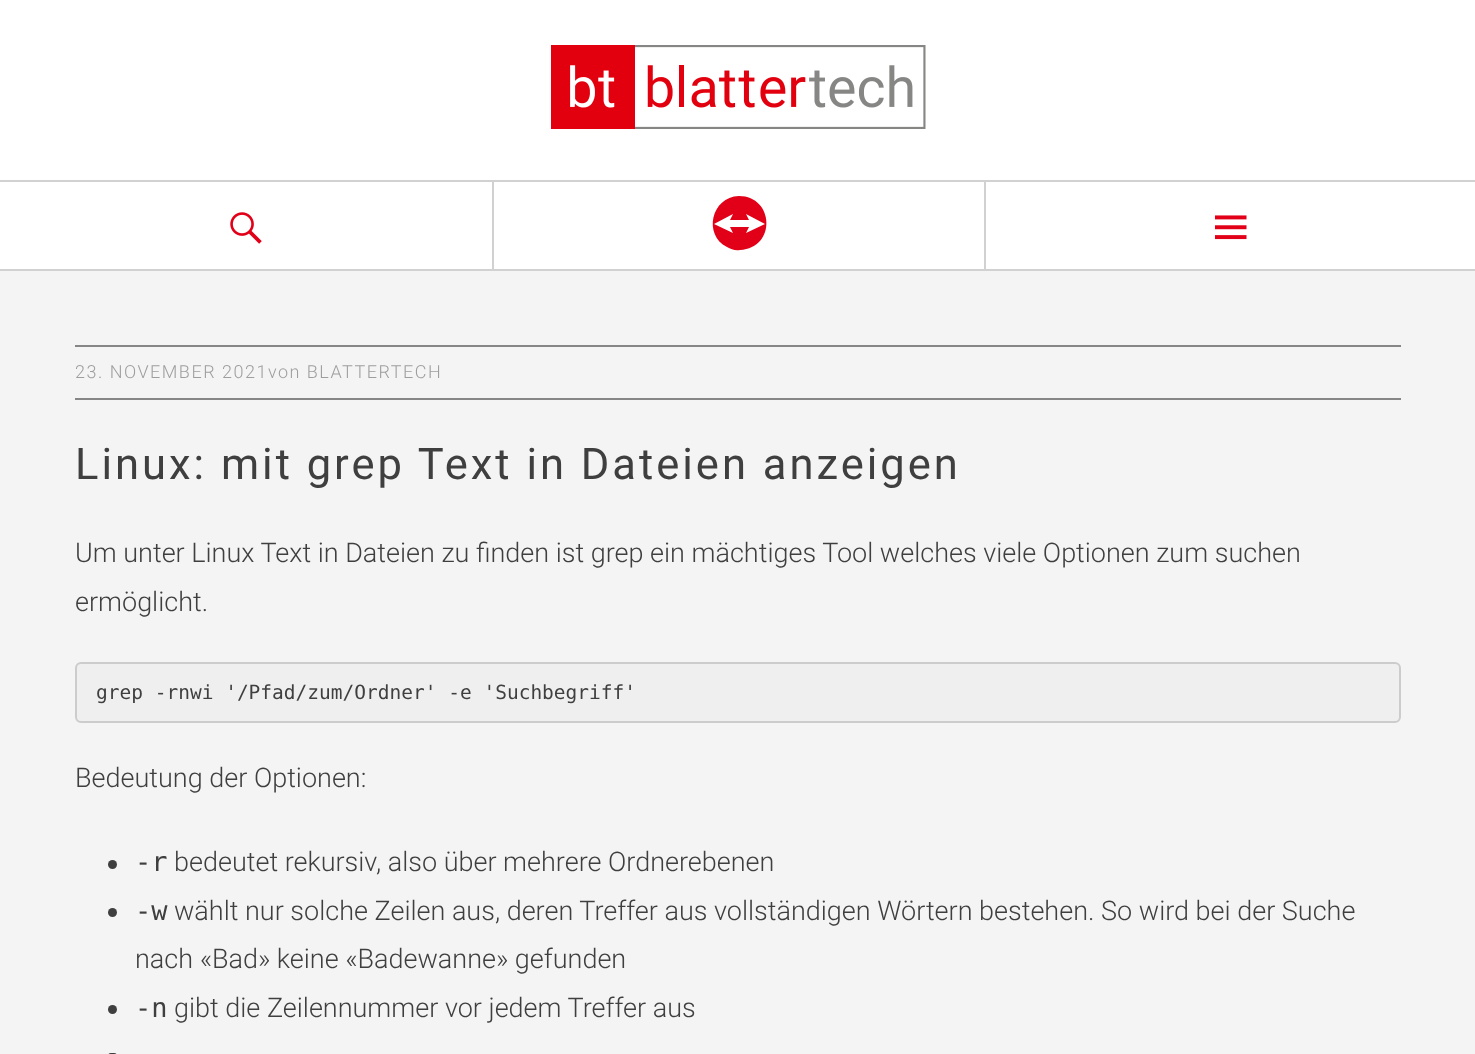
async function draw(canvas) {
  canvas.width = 1475
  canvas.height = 1054
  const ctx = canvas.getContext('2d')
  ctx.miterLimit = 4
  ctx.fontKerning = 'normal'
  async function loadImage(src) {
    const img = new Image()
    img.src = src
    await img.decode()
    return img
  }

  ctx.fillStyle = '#f4f4f4'
  ctx.fillRect(0, 0, 1475, 1054)
  ctx.fillStyle = '#fff'
  ctx.fillRect(0, 0, 1475, 269)
  ctx.drawImage(await loadImage('image0.png'), 551, 45, 375, 84)
  ctx.fillStyle = '#d1d1d1'
  ctx.fillRect(0, 180, 1475, 2)
  ctx.fillRect(0, 269, 1475, 2)
  ctx.drawImage(await loadImage('image1.png'), 230, 212, 32, 32)
  ctx.fillRect(492, 180, 2, 90)
  ctx.fillStyle = '#e20018'
  ctx.beginPath()
  ctx.moveTo(739, 196)
  ctx.bezierCurveTo(711, 197, 703, 235, 727, 247)
  ctx.bezierCurveTo(731, 249, 735, 251, 740, 250)
  ctx.bezierCurveTo(777, 248, 774, 196, 739, 196)
  ctx.closePath()
  ctx.moveTo(746, 233)
  ctx.lineTo(749, 227)
  ctx.lineTo(730, 227)
  ctx.lineTo(733, 233)
  ctx.lineTo(714, 224)
  ctx.lineTo(733, 214)
  ctx.lineTo(730, 220)
  ctx.lineTo(749, 220)
  ctx.lineTo(746, 214)
  ctx.lineTo(765, 224)
  ctx.closePath()
  ctx.fill()
  ctx.fillStyle = '#d1d1d1'
  ctx.fillRect(984, 180, 2, 90)
  ctx.drawImage(await loadImage('image2.png'), 1215, 215, 32, 25)
  ctx.fillStyle = '#868686'
  ctx.fillRect(75, 345, 1326, 2)
  ctx.letterSpacing = '1.5px'
  ctx.font = '300 18px Roboto'
  ctx.fillStyle = '#9e9e9e'
  ctx.fillText('23. NOVEMBER 2021von BLATTERTECH', 75, 378)
  ctx.fillStyle = '#868686'
  ctx.fillRect(75, 398, 1326, 2)
  ctx.letterSpacing = '3px'
  ctx.font = '43.5px Roboto'
  ctx.fillStyle = '#3f3f3f'
  ctx.fillText('Linux: mit grep Text in Dateien anzeigen', 75, 479)
  ctx.letterSpacing = '0px'
  ctx.font = '300 27px Roboto'
  ctx.fillText('Um unter Linux Text in Dateien zu finden ist grep ein mächtiges Tool welches viele Optionen zum suchen', 75, 562)
  ctx.fillText('ermöglicht.', 75, 611)
  ctx.fillStyle = '#efefef'
  ctx.beginPath()
  ctx.roundRect(76, 663, 1324, 59, 5)
  ctx.fill()
  ctx.strokeStyle = '#ccc'
  ctx.lineWidth = 2
  ctx.stroke()
  ctx.font = '19.5px DejaVu Sans Mono'
  ctx.fillStyle = '#3f3f3f'
  ctx.fillText('grep -rnwi \'/Pfad/zum/Ordner\' -e \'Suchbegriff\'', 96, 699)
  ctx.font = '300 27px Roboto'
  ctx.fillText('Bedeutung der Optionen:', 75, 787)
  ctx.beginPath()
  ctx.arc(112.5, 864.5, 4.5, 0, 2 * Math.PI)
  ctx.fill()
  ctx.font = '27px DejaVu Sans Mono'
  ctx.fillText('-r', 135, 871)
  ctx.font = '300 27px Roboto'
  ctx.fillText('bedeutet rekursiv, also über mehrere Ordnerebenen', 174, 871)
  ctx.beginPath()
  ctx.arc(112.5, 912.5, 4.5, 0, 2 * Math.PI)
  ctx.fill()
  ctx.font = '27px DejaVu Sans Mono'
  ctx.fillText('-w', 135, 920)
  ctx.font = '300 27px Roboto'
  ctx.fillText('wählt nur solche Zeilen aus, deren Treffer aus vollständigen Wörtern bestehen. So wird bei der Suche', 174, 920)
  ctx.fillText('nach «Bad» keine «Badewanne» gefunden', 135, 968)
  ctx.beginPath()
  ctx.arc(112.5, 1009.5, 4.5, 0, 2 * Math.PI)
  ctx.fill()
  ctx.font = '27px DejaVu Sans Mono'
  ctx.fillText('-n', 135, 1017)
  ctx.font = '300 27px Roboto'
  ctx.fillText('gibt die Zeilennummer vor jedem Treffer aus', 174, 1017)
  ctx.beginPath()
  ctx.roundRect(108, 1053, 9, 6, 4.5)
  ctx.fill()
}

draw(document.querySelector('canvas'))
